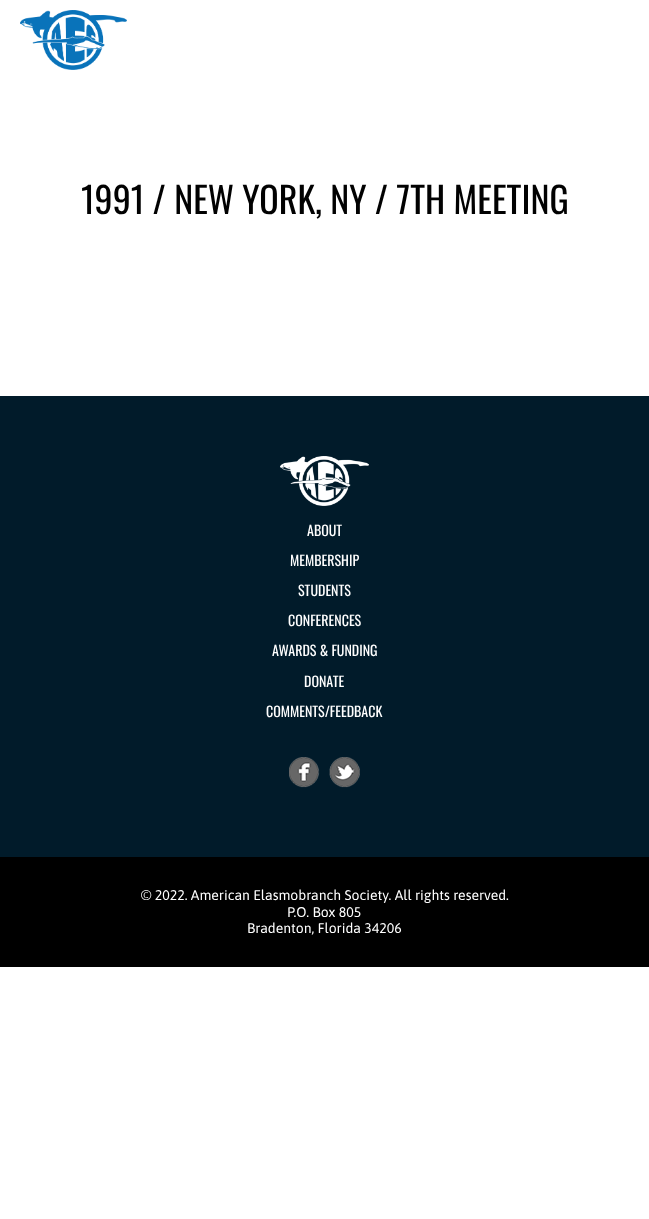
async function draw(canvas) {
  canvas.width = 649
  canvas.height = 1219
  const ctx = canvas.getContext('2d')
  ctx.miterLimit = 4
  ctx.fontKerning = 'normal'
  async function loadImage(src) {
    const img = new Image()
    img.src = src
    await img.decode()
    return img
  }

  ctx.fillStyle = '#fff'
  ctx.fillRect(0, 0, 649, 1219)
  ctx.drawImage(await loadImage('image0.png'), 20, 10, 107, 60)
  ctx.font = '36px Oswald'
  ctx.fillStyle = '#010101'
  ctx.fillText('1991 / NEW YORK, NY / 7TH MEETING', 81, 214)
  ctx.fillStyle = '#011b2a'
  ctx.fillRect(0, 396, 649, 461)
  ctx.drawImage(await loadImage('image1.png'), 280, 456, 89, 50)
  ctx.font = '14px Oswald'
  ctx.fillStyle = '#fff'
  ctx.fillText('ABOUT', 307, 536)
  ctx.fillText('MEMBERSHIP', 290, 566)
  ctx.fillText('STUDENTS', 298, 596)
  ctx.fillText('CONFERENCES', 288, 626)
  ctx.fillText('AWARDS & FUNDING', 272, 656)
  ctx.fillText('DONATE', 304, 687)
  ctx.fillText('COMMENTS/FEEDBACK', 266, 717)
  ctx.drawImage(await loadImage('image2.png'), 289, 757, 31, 31)
  ctx.drawImage(await loadImage('image3.png'), 329, 757, 31, 31)
  ctx.fillStyle = '#000'
  ctx.fillRect(0, 857, 649, 110)
  ctx.font = '14px Asap'
  ctx.fillStyle = '#fff'
  ctx.fillText('© 2022. American Elasmobranch Society. All rights reserved.', 141, 900)
  ctx.fillText('P.O. Box 805', 287, 917)
  ctx.fillText('Bradenton, Florida 34206', 247, 933)
}

draw(document.querySelector('canvas'))
